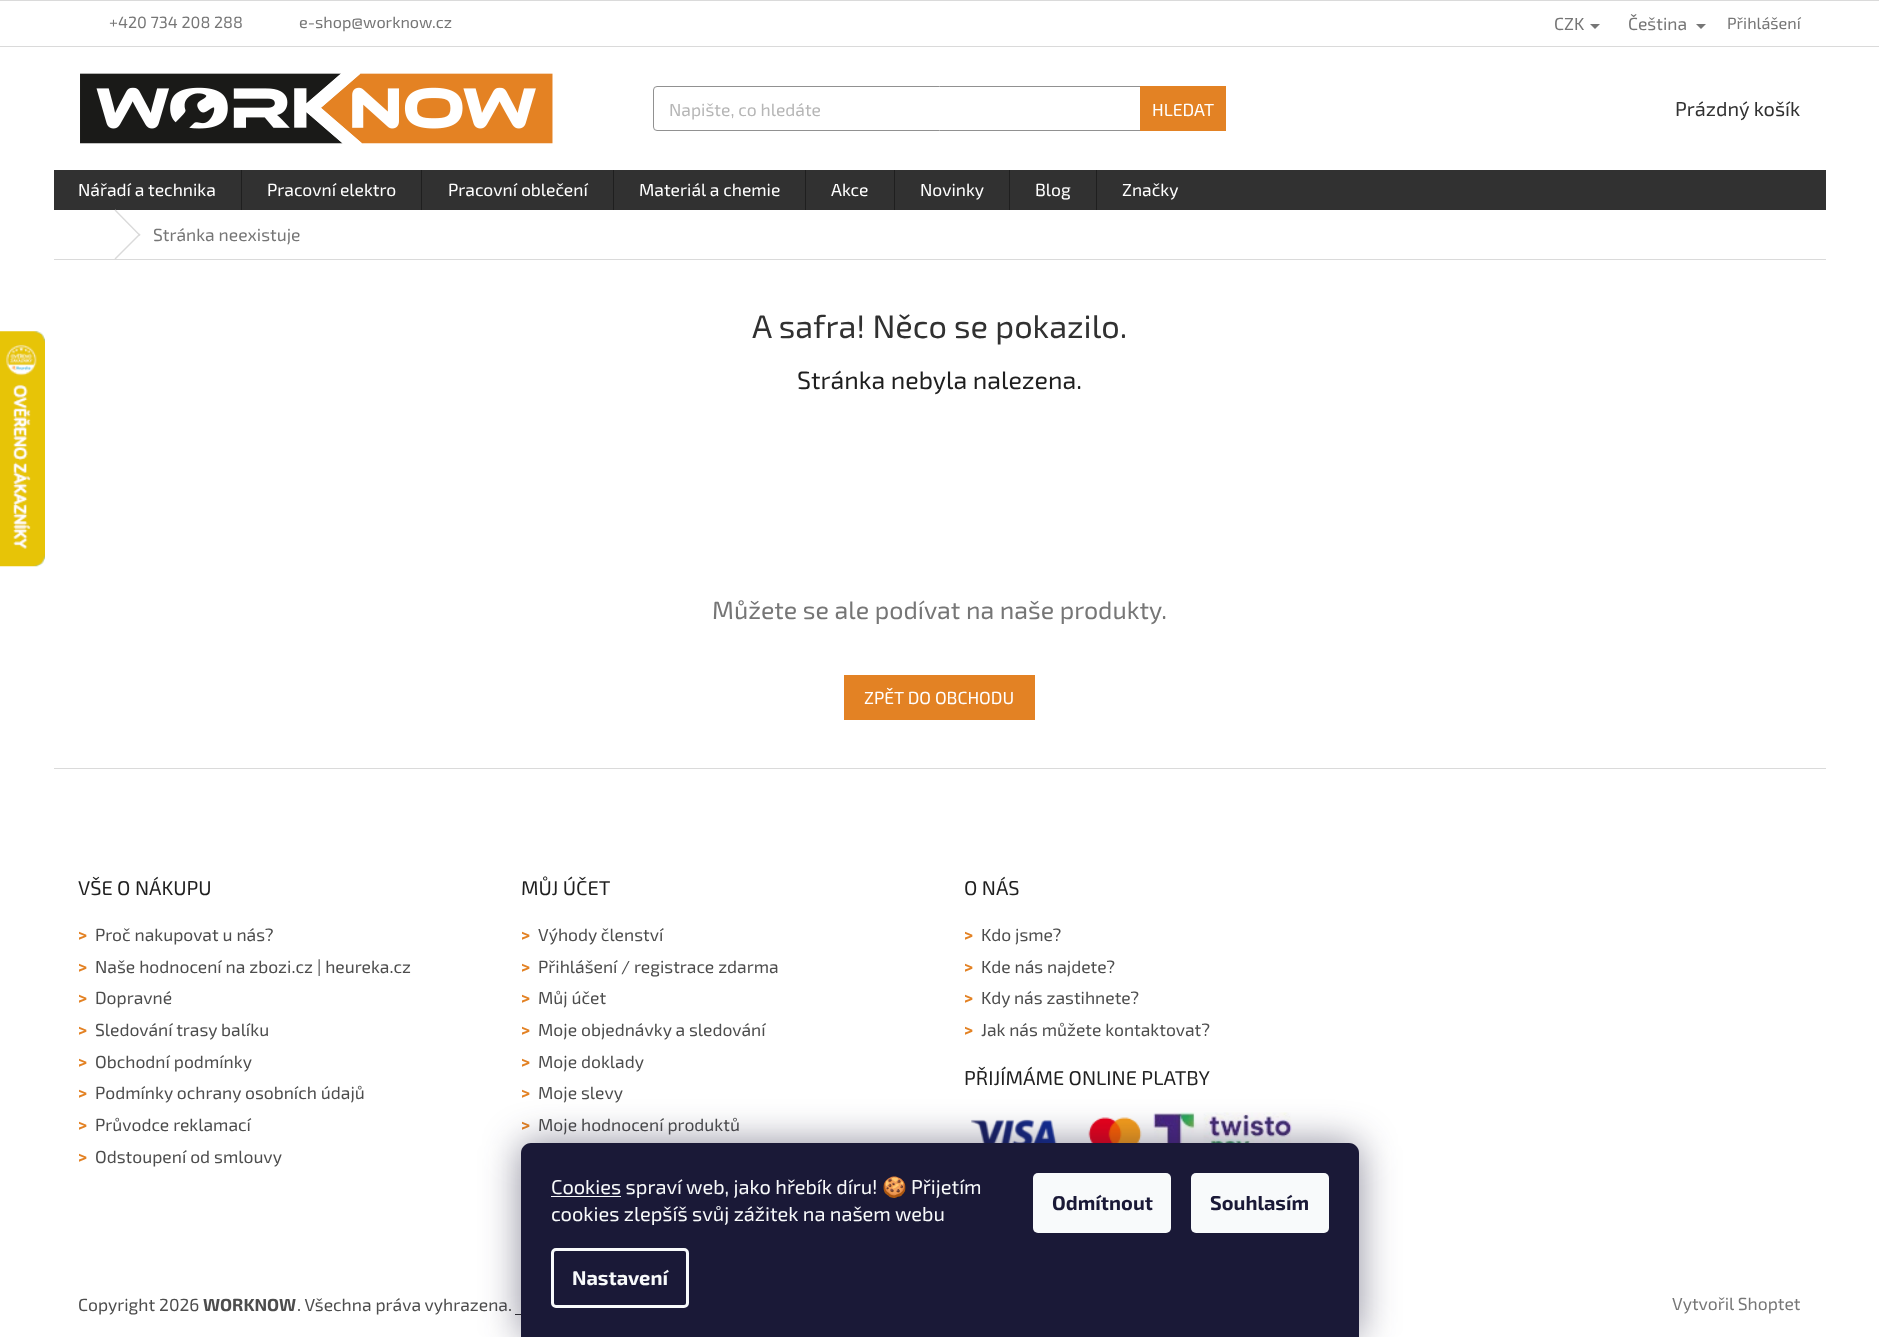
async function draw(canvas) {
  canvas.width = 1897
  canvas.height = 1337
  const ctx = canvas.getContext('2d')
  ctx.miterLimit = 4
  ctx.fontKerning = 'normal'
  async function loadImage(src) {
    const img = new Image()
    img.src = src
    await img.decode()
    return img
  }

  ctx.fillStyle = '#fff'
  ctx.fillRect(0, 0, 1897, 1337)
  ctx.drawImage(await loadImage('image0.png'), 0, 331, 45, 236)
  ctx.fillStyle = '#dadada'
  ctx.fillRect(0, 0, 1879, 1)
  ctx.fillRect(0, 46, 1879, 1)
  ctx.font = '16.25px "Exo 2"'
  ctx.fillStyle = '#767676'
  ctx.fillText('+420 734 208 288', 109, 28)
  ctx.fillText('e-shop@worknow.cz', 299, 28)
  ctx.font = '17.5px "Exo 2"'
  ctx.fillText('CZK', 1554, 30)
  ctx.beginPath()
  ctx.moveTo(1590, 24)
  ctx.lineTo(1600, 24)
  ctx.lineTo(1595, 29)
  ctx.closePath()
  ctx.fill()
  ctx.fillText('Čeština', 1628, 30)
  ctx.beginPath()
  ctx.moveTo(1696, 24)
  ctx.lineTo(1706, 24)
  ctx.lineTo(1701, 29)
  ctx.closePath()
  ctx.fill()
  ctx.font = '16.25px "Exo 2"'
  ctx.fillText('Přihlášení', 1727, 29)
  ctx.drawImage(await loadImage('image1.png'), 80, 73, 473, 71)
  ctx.beginPath()
  ctx.roundRect(653.5, 86.5, 572, 44, 3.5)
  ctx.strokeStyle = '#919191'
  ctx.stroke()
  ctx.font = '17.5px "Exo 2"'
  ctx.fillStyle = '#b6b6b6'
  ctx.fillText('Napište, co hledáte', 669, 116)
  ctx.fillStyle = '#e38224'
  ctx.fillRect(1140, 86, 86, 45)
  ctx.fillStyle = '#fff'
  ctx.fillText('HLEDAT', 1152, 116)
  ctx.font = '20px "Exo 2"'
  ctx.fillStyle = '#313131'
  ctx.fillText('Prázdný košík', 1675, 116)
  ctx.fillRect(54, 170, 1772, 40)
  ctx.font = '17.5px "Exo 2"'
  ctx.fillStyle = '#fff'
  ctx.fillText('Nářadí a technika', 78, 196)
  ctx.fillStyle = '#1f1f1f'
  ctx.fillRect(241, 170, 1, 40)
  ctx.fillStyle = '#fff'
  ctx.fillText('Pracovní elektro', 267, 196)
  ctx.fillStyle = '#1f1f1f'
  ctx.fillRect(421, 170, 1, 40)
  ctx.fillStyle = '#fff'
  ctx.fillText('Pracovní oblečení', 448, 196)
  ctx.fillStyle = '#1f1f1f'
  ctx.fillRect(613, 170, 1, 40)
  ctx.fillStyle = '#fff'
  ctx.fillText('Materiál a chemie', 639, 196)
  ctx.fillStyle = '#1f1f1f'
  ctx.fillRect(805, 170, 1, 40)
  ctx.fillStyle = '#fff'
  ctx.fillText('Akce', 831, 196)
  ctx.fillStyle = '#1f1f1f'
  ctx.fillRect(894, 170, 1, 40)
  ctx.fillStyle = '#fff'
  ctx.fillText('Novinky', 920, 196)
  ctx.fillStyle = '#1f1f1f'
  ctx.fillRect(1009, 170, 1, 40)
  ctx.fillStyle = '#fff'
  ctx.fillText('Blog', 1035, 196)
  ctx.fillStyle = '#1f1f1f'
  ctx.fillRect(1096, 170, 1, 40)
  ctx.fillStyle = '#fff'
  ctx.fillText('Značky', 1122, 196)
  ctx.fillStyle = '#dadada'
  ctx.fillRect(54, 259, 1772, 1)
  ctx.beginPath()
  ctx.moveTo(114.5, 210.5)
  ctx.lineTo(115.5, 209.5)
  ctx.lineTo(140.5, 235)
  ctx.lineTo(139.5, 236)
  ctx.closePath()
  ctx.fill()
  ctx.beginPath()
  ctx.moveTo(139.5, 233.5)
  ctx.lineTo(140.5, 234.5)
  ctx.lineTo(115.5, 259.5)
  ctx.lineTo(114.5, 258.5)
  ctx.closePath()
  ctx.fill()
  ctx.fillStyle = '#767676'
  ctx.fillText('Stránka neexistuje', 153, 241)
  ctx.font = '32.5px "Exo 2"'
  ctx.fillStyle = '#313131'
  ctx.fillText('A safra! Něco se pokazilo.', 752, 338)
  ctx.font = '25px "Exo 2"'
  ctx.fillStyle = '#1f1f1f'
  ctx.fillText('Stránka nebyla nalezena.', 797, 389)
  ctx.fillStyle = '#767676'
  ctx.fillText('Můžete se ale podívat na naše produkty.', 712, 619)
  ctx.fillStyle = '#e38224'
  ctx.fillRect(844, 675, 191, 45)
  ctx.font = '17.5px "Exo 2"'
  ctx.fillStyle = '#fff'
  ctx.fillText('ZPĚT DO OBCHODU', 864, 704)
  ctx.fillStyle = '#dadada'
  ctx.fillRect(54, 768, 1772, 1)
  ctx.font = '20px "Exo 2"'
  ctx.fillStyle = '#1f1f1f'
  ctx.fillText('VŠE O NÁKUPU', 78, 895)
  ctx.font = 'bold 17.5px "Exo 2"'
  ctx.fillStyle = '#e38224'
  ctx.fillText('>', 78, 941)
  ctx.font = '17.5px "Exo 2"'
  ctx.fillStyle = '#4d4d4d'
  ctx.fillText('Proč nakupovat u nás?', 95, 941)
  ctx.font = 'bold 17.5px "Exo 2"'
  ctx.fillStyle = '#e38224'
  ctx.fillText('>', 78, 973)
  ctx.font = '17.5px "Exo 2"'
  ctx.fillStyle = '#4d4d4d'
  ctx.fillText('Naše hodnocení na zbozi.cz', 95, 973)
  ctx.fillText('| heureka.cz', 317, 973)
  ctx.font = 'bold 17.5px "Exo 2"'
  ctx.fillStyle = '#e38224'
  ctx.fillText('>', 78, 1004)
  ctx.font = '17.5px "Exo 2"'
  ctx.fillStyle = '#4d4d4d'
  ctx.fillText('Dopravné', 95, 1004)
  ctx.font = 'bold 17.5px "Exo 2"'
  ctx.fillStyle = '#e38224'
  ctx.fillText('>', 78, 1036)
  ctx.font = '17.5px "Exo 2"'
  ctx.fillStyle = '#4d4d4d'
  ctx.fillText('Sledování trasy balíku', 95, 1036)
  ctx.font = 'bold 17.5px "Exo 2"'
  ctx.fillStyle = '#e38224'
  ctx.fillText('>', 78, 1068)
  ctx.font = '17.5px "Exo 2"'
  ctx.fillStyle = '#4d4d4d'
  ctx.fillText('Obchodní podmínky', 95, 1068)
  ctx.font = 'bold 17.5px "Exo 2"'
  ctx.fillStyle = '#e38224'
  ctx.fillText('>', 78, 1099)
  ctx.font = '17.5px "Exo 2"'
  ctx.fillStyle = '#4d4d4d'
  ctx.fillText('Podmínky ochrany osobních údajů', 95, 1099)
  ctx.font = 'bold 17.5px "Exo 2"'
  ctx.fillStyle = '#e38224'
  ctx.fillText('>', 78, 1131)
  ctx.font = '17.5px "Exo 2"'
  ctx.fillStyle = '#4d4d4d'
  ctx.fillText('Průvodce reklamací', 95, 1131)
  ctx.font = 'bold 17.5px "Exo 2"'
  ctx.fillStyle = '#e38224'
  ctx.fillText('>', 78, 1163)
  ctx.font = '17.5px "Exo 2"'
  ctx.fillStyle = '#4d4d4d'
  ctx.fillText('Odstoupení od smlouvy', 95, 1163)
  ctx.font = '20px "Exo 2"'
  ctx.fillStyle = '#1f1f1f'
  ctx.fillText('MŮJ ÚČET', 521, 895)
  ctx.font = 'bold 17.5px "Exo 2"'
  ctx.fillStyle = '#e38224'
  ctx.fillText('>', 521, 941)
  ctx.font = '17.5px "Exo 2"'
  ctx.fillStyle = '#4d4d4d'
  ctx.fillText('Výhody členství', 538, 941)
  ctx.font = 'bold 17.5px "Exo 2"'
  ctx.fillStyle = '#e38224'
  ctx.fillText('>', 521, 973)
  ctx.font = '17.5px "Exo 2"'
  ctx.fillStyle = '#4d4d4d'
  ctx.fillText('Přihlášení', 538, 973)
  ctx.fillText('/ registrace zdarma', 621, 973)
  ctx.font = 'bold 17.5px "Exo 2"'
  ctx.fillStyle = '#e38224'
  ctx.fillText('>', 521, 1004)
  ctx.font = '17.5px "Exo 2"'
  ctx.fillStyle = '#4d4d4d'
  ctx.fillText('Můj účet', 538, 1004)
  ctx.font = 'bold 17.5px "Exo 2"'
  ctx.fillStyle = '#e38224'
  ctx.fillText('>', 521, 1036)
  ctx.font = '17.5px "Exo 2"'
  ctx.fillStyle = '#4d4d4d'
  ctx.fillText('Moje objednávky a sledování', 538, 1036)
  ctx.font = 'bold 17.5px "Exo 2"'
  ctx.fillStyle = '#e38224'
  ctx.fillText('>', 521, 1068)
  ctx.font = '17.5px "Exo 2"'
  ctx.fillStyle = '#4d4d4d'
  ctx.fillText('Moje doklady', 538, 1068)
  ctx.font = 'bold 17.5px "Exo 2"'
  ctx.fillStyle = '#e38224'
  ctx.fillText('>', 521, 1099)
  ctx.font = '17.5px "Exo 2"'
  ctx.fillStyle = '#4d4d4d'
  ctx.fillText('Moje slevy', 538, 1099)
  ctx.font = 'bold 17.5px "Exo 2"'
  ctx.fillStyle = '#e38224'
  ctx.fillText('>', 521, 1131)
  ctx.font = '17.5px "Exo 2"'
  ctx.fillStyle = '#4d4d4d'
  ctx.fillText('Moje hodnocení produktů', 538, 1131)
  ctx.font = '20px "Exo 2"'
  ctx.fillStyle = '#1f1f1f'
  ctx.fillText('O NÁS', 964, 895)
  ctx.font = 'bold 17.5px "Exo 2"'
  ctx.fillStyle = '#e38224'
  ctx.fillText('>', 964, 941)
  ctx.font = '17.5px "Exo 2"'
  ctx.fillStyle = '#4d4d4d'
  ctx.fillText('Kdo jsme?', 981, 941)
  ctx.font = 'bold 17.5px "Exo 2"'
  ctx.fillStyle = '#e38224'
  ctx.fillText('>', 964, 973)
  ctx.font = '17.5px "Exo 2"'
  ctx.fillStyle = '#4d4d4d'
  ctx.fillText('Kde nás najdete?', 981, 973)
  ctx.font = 'bold 17.5px "Exo 2"'
  ctx.fillStyle = '#e38224'
  ctx.fillText('>', 964, 1004)
  ctx.font = '17.5px "Exo 2"'
  ctx.fillStyle = '#4d4d4d'
  ctx.fillText('Kdy nás zastihnete?', 981, 1004)
  ctx.font = 'bold 17.5px "Exo 2"'
  ctx.fillStyle = '#e38224'
  ctx.fillText('>', 964, 1036)
  ctx.font = '17.5px "Exo 2"'
  ctx.fillStyle = '#4d4d4d'
  ctx.fillText('Jak nás můžete kontaktovat?', 981, 1036)
  ctx.font = '20px "Exo 2"'
  ctx.fillStyle = '#1f1f1f'
  ctx.fillText('PŘIJÍMÁME ONLINE PLATBY', 964, 1085)
  ctx.drawImage(await loadImage('image2.png'), 971, 1117, 171, 26)
  ctx.drawImage(await loadImage('image3.png'), 1153, 1112, 139, 31)
  ctx.font = '17.5px "Exo 2"'
  ctx.fillStyle = '#4d4d4d'
  ctx.fillText('Copyright 2026', 78, 1311)
  ctx.font = 'bold 17.5px "Exo 2"'
  ctx.fillText('WORKNOW', 203, 1311)
  ctx.font = '17.5px "Exo 2"'
  ctx.fillText('. Všechna práva vyhrazena.', 297, 1311)
  ctx.fillStyle = '#313131'
  ctx.fillRect(515, 1314, 6, 1)
  ctx.fillStyle = '#767676'
  ctx.fillText('Vytvořil Shoptet', 1672, 1310)
  ctx.fillStyle = '#1b193980'
  ctx.filter = 'blur(19px)'
  ctx.beginPath()
  ctx.roundRect(521, 1143, 838, 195, 10)
  ctx.fill()
  ctx.filter = 'none'
  ctx.fillStyle = '#1a1937'
  ctx.beginPath()
  ctx.moveTo(531, 1143)
  ctx.lineTo(1349, 1143)
  ctx.bezierCurveTo(1354.5, 1143, 1359, 1147.5, 1359, 1153)
  ctx.lineTo(1359, 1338)
  ctx.lineTo(521, 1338)
  ctx.lineTo(521, 1153)
  ctx.bezierCurveTo(521, 1147.5, 525.5, 1143, 531, 1143)
  ctx.closePath()
  ctx.fill()
  ctx.fillStyle = '#f8fafb'
  ctx.fillRect(551, 1196, 70, 1)
  ctx.font = '20px "Exo 2"'
  ctx.fillText('Cookies spraví web, jako hřebík díru!', 551, 1194)
  ctx.font = '20px Noto Color Emoji'
  ctx.fillText('🍪', 882, 1194)
  ctx.font = '20px "Exo 2"'
  ctx.fillText('Přijetím', 911, 1194)
  ctx.fillText('cookies zlepšíš svůj zážitek na našem webu', 551, 1221)
  ctx.beginPath()
  ctx.roundRect(552.5, 1249.5, 135, 57, 3.5)
  ctx.strokeStyle = '#f8fafb'
  ctx.lineWidth = 3
  ctx.stroke()
  ctx.font = 'bold 20px "Exo 2"'
  ctx.fillText('Nastavení', 572, 1285)
  ctx.beginPath()
  ctx.roundRect(1033, 1173, 138, 60, 5)
  ctx.fill()
  ctx.fillStyle = '#1a1937'
  ctx.fillText('Odmítnout', 1052, 1210)
  ctx.fillStyle = '#f8fafb'
  ctx.beginPath()
  ctx.roundRect(1191, 1173, 138, 60, 5)
  ctx.fill()
  ctx.fillStyle = '#1a1937'
  ctx.fillText('Souhlasím', 1210, 1210)
}

draw(document.querySelector('canvas'))
